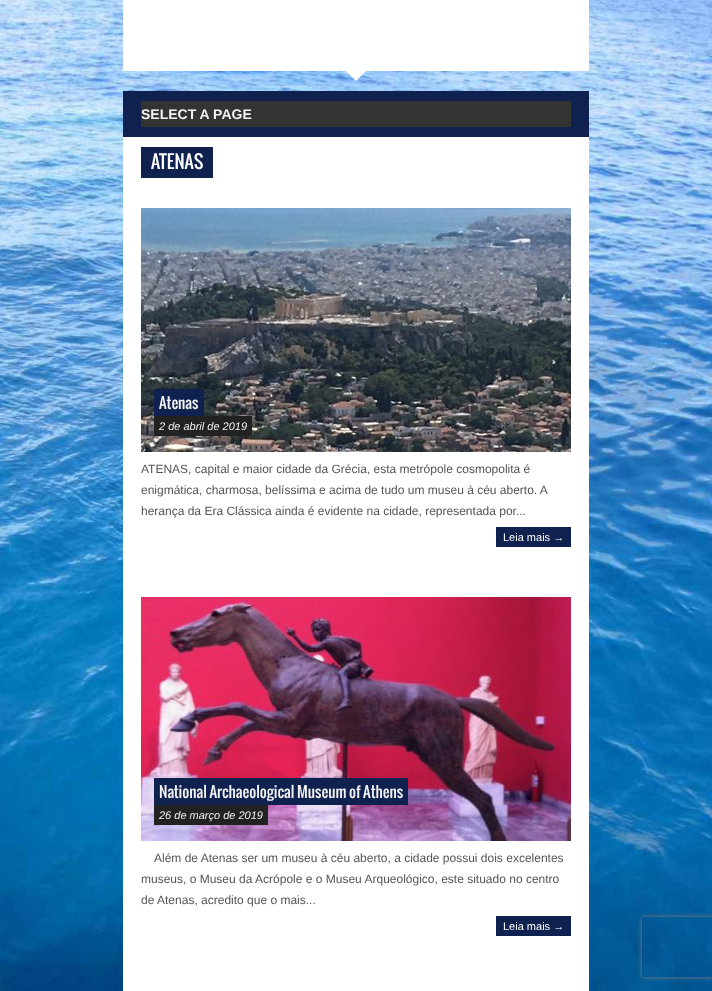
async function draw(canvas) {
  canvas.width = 712
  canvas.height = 991
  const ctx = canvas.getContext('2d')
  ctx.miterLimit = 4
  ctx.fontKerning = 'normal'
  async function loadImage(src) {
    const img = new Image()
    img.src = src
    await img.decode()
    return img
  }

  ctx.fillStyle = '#fff'
  ctx.fillRect(0, 0, 712, 991)
  ctx.drawImage(await loadImage('image0.png'), 0, 0, 712, 991)
  ctx.fillRect(123, 0, 466, 71)
  ctx.beginPath()
  ctx.moveTo(346, 71)
  ctx.lineTo(366, 71)
  ctx.lineTo(356, 81)
  ctx.closePath()
  ctx.fill()
  ctx.fillStyle = '#0f214f'
  ctx.fillRect(123, 91, 466, 46)
  ctx.fillStyle = '#333'
  ctx.fillRect(141, 101, 430, 26)
  ctx.font = 'bold 14px Liberation Sans'
  ctx.fillStyle = '#f1f1f1'
  ctx.fillText('SELECT A PAGE', 141, 119)
  ctx.fillStyle = '#fff'
  ctx.fillRect(123, 137, 466, 854)
  ctx.fillStyle = '#0f214f'
  ctx.fillRect(141, 147, 72, 31)
  ctx.font = '18px Oswald'
  ctx.fillStyle = '#fff'
  ctx.fillText('ATENAS', 151, 169)
  ctx.drawImage(await loadImage('image1.png'), 141, 208, 430, 244)
  ctx.fillStyle = '#0f214f'
  ctx.fillRect(154, 389, 50, 27)
  ctx.font = '15px Oswald'
  ctx.fillStyle = '#f1f1f1'
  ctx.fillText('Atenas', 159, 409)
  ctx.fillStyle = '#222'
  ctx.fillRect(154, 416, 98, 20)
  ctx.font = 'italic 11px Liberation Sans'
  ctx.fillStyle = '#f1f1f1'
  ctx.fillText('2 de abril de 2019', 159, 430)
  ctx.font = '12px Liberation Sans'
  ctx.fillStyle = '#555'
  ctx.fillText('ATENAS, capital e maior cidade da Grécia, esta metrópole cosmopolita é', 141, 473)
  ctx.fillText('enigmática, charmosa, belíssima e acima de tudo um museu à céu aberto. A', 141, 494)
  ctx.fillText('herança da Era Clássica ainda é evidente na cidade, representada por...', 141, 515)
  ctx.fillStyle = '#0f214f'
  ctx.fillRect(496, 527, 75, 20)
  ctx.font = '11px Liberation Sans'
  ctx.fillStyle = '#fff'
  ctx.fillText('Leia mais →', 503, 541)
  ctx.drawImage(await loadImage('image2.png'), 141, 597, 430, 244)
  ctx.fillStyle = '#0f214f'
  ctx.fillRect(154, 778, 254, 27)
  ctx.font = '15px Oswald'
  ctx.fillStyle = '#f1f1f1'
  ctx.fillText('National Archaeological Museum of Athens', 159, 798)
  ctx.fillStyle = '#222'
  ctx.fillRect(154, 805, 114, 20)
  ctx.font = 'italic 11px Liberation Sans'
  ctx.fillStyle = '#f1f1f1'
  ctx.fillText('26 de março de 2019', 159, 819)
  ctx.font = '12px Liberation Sans'
  ctx.fillStyle = '#555'
  ctx.fillText('Além de Atenas ser um museu à céu aberto, a cidade possui dois excelentes', 154, 862)
  ctx.fillText('museus, o Museu da Acrópole e o Museu Arqueológico, este situado no centro', 141, 883)
  ctx.fillText('de Atenas, acredito que o mais...', 141, 904)
  ctx.fillStyle = '#0f214f'
  ctx.fillRect(496, 916, 75, 20)
  ctx.font = '11px Liberation Sans'
  ctx.fillStyle = '#fff'
  ctx.fillText('Leia mais →', 503, 930)
  ctx.save()
  ctx.beginPath()
  ctx.moveTo(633, 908)
  ctx.lineTo(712, 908)
  ctx.lineTo(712, 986)
  ctx.lineTo(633, 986)
  ctx.closePath()
  ctx.moveTo(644, 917)
  ctx.lineTo(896, 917)
  ctx.bezierCurveTo(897, 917, 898, 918, 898, 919)
  ctx.lineTo(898, 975)
  ctx.bezierCurveTo(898, 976, 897, 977, 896, 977)
  ctx.lineTo(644, 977)
  ctx.bezierCurveTo(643, 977, 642, 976, 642, 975)
  ctx.lineTo(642, 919)
  ctx.bezierCurveTo(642, 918, 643, 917, 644, 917)
  ctx.closePath()
  ctx.clip('evenodd')
  ctx.fillStyle = '#808080'
  ctx.filter = 'blur(2.5px)'
  ctx.beginPath()
  ctx.roundRect(642, 917, 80, 60, 2)
  ctx.fill()
  ctx.filter = 'none'
  ctx.restore()
}

draw(document.querySelector('canvas'))
